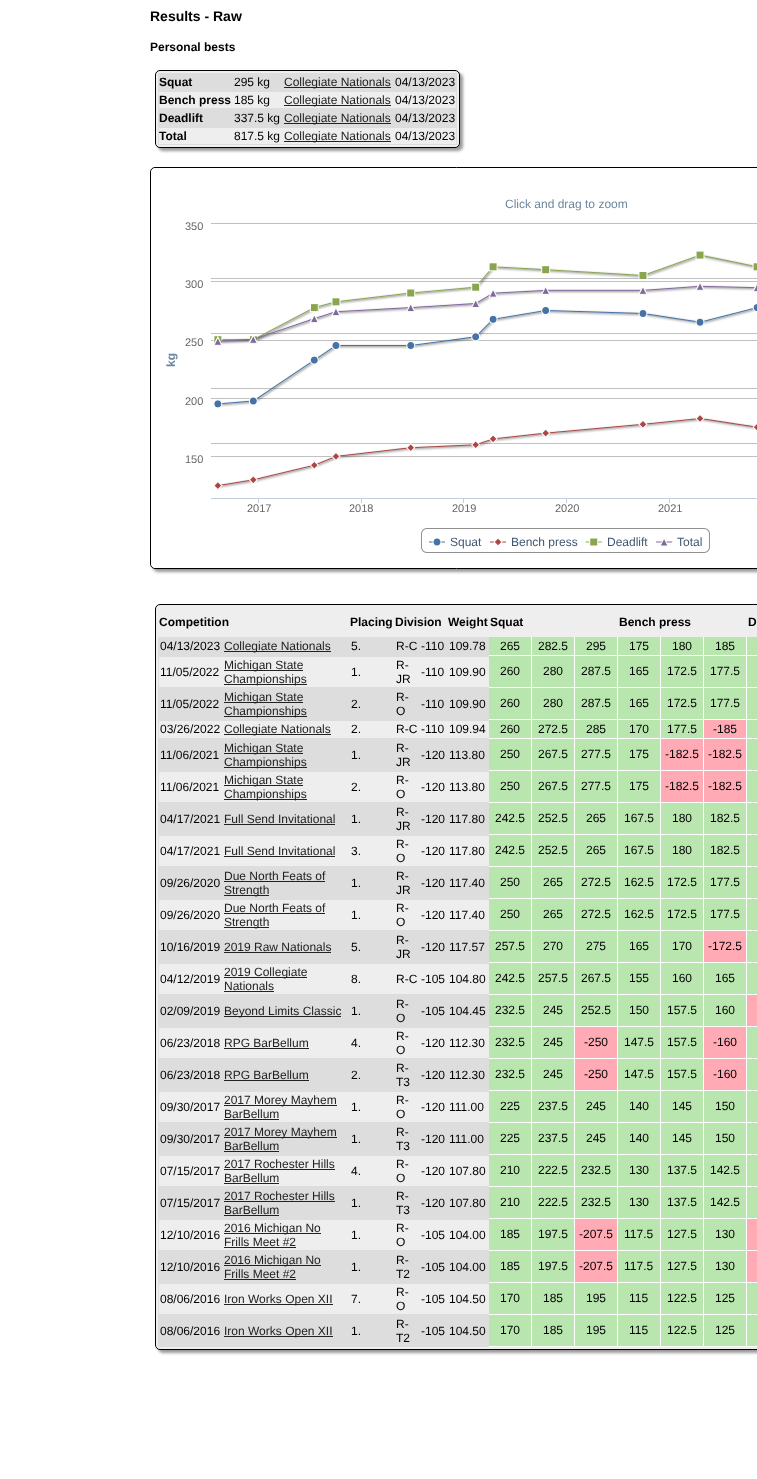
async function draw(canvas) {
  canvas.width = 757
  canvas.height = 1479
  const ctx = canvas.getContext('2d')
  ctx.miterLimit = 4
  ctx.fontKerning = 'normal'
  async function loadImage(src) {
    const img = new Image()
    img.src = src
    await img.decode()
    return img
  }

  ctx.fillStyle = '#fff'
  ctx.fillRect(0, 0, 757, 1479)
  ctx.font = 'bold 14px Liberation Sans'
  ctx.fillStyle = '#000'
  ctx.fillText('Results - Raw', 150, 21)
  ctx.font = 'bold 12px Liberation Sans'
  ctx.fillText('Personal bests', 150, 51)
  ctx.fillStyle = '#999'
  ctx.filter = 'blur(1.5px)'
  ctx.beginPath()
  ctx.roundRect(158, 73, 305, 78, 5)
  ctx.fill()
  ctx.filter = 'none'
  ctx.fillStyle = '#eee'
  ctx.beginPath()
  ctx.roundRect(155.5, 70.5, 304, 77, 4.5)
  ctx.fill()
  ctx.strokeStyle = '#000'
  ctx.stroke()
  ctx.fillStyle = '#ddd'
  ctx.fillRect(158, 73, 299, 18)
  ctx.fillStyle = '#000'
  ctx.fillText('Squat', 159, 86)
  ctx.font = '12px Liberation Sans'
  ctx.fillText('295 kg', 234, 86)
  ctx.fillStyle = '#222'
  ctx.fillRect(284, 87, 107, 1)
  ctx.fillText('Collegiate Nationals', 284, 86)
  ctx.fillStyle = '#000'
  ctx.fillText('04/13/2023', 395, 86)
  ctx.strokeStyle = '#ddd'
  ctx.strokeRect(158.5, 91.5, 298, 17)
  ctx.font = 'bold 12px Liberation Sans'
  ctx.fillText('Bench press', 159, 104)
  ctx.font = '12px Liberation Sans'
  ctx.fillText('185 kg', 234, 104)
  ctx.fillStyle = '#222'
  ctx.fillRect(284, 105, 107, 1)
  ctx.fillText('Collegiate Nationals', 284, 104)
  ctx.fillStyle = '#000'
  ctx.fillText('04/13/2023', 395, 104)
  ctx.fillStyle = '#ddd'
  ctx.fillRect(158, 109, 299, 18)
  ctx.font = 'bold 12px Liberation Sans'
  ctx.fillStyle = '#000'
  ctx.fillText('Deadlift', 159, 122)
  ctx.font = '12px Liberation Sans'
  ctx.fillText('337.5 kg', 234, 122)
  ctx.fillStyle = '#222'
  ctx.fillRect(284, 123, 107, 1)
  ctx.fillText('Collegiate Nationals', 284, 122)
  ctx.fillStyle = '#000'
  ctx.fillText('04/13/2023', 395, 122)
  ctx.strokeRect(158.5, 127.5, 298, 17)
  ctx.font = 'bold 12px Liberation Sans'
  ctx.fillText('Total', 159, 140)
  ctx.font = '12px Liberation Sans'
  ctx.fillText('817.5 kg', 234, 140)
  ctx.fillStyle = '#222'
  ctx.fillRect(284, 141, 107, 1)
  ctx.fillText('Collegiate Nationals', 284, 140)
  ctx.fillStyle = '#000'
  ctx.fillText('04/13/2023', 395, 140)
  ctx.fillStyle = '#999'
  ctx.filter = 'blur(1.5px)'
  ctx.beginPath()
  ctx.roundRect(153, 170, 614, 402, 5)
  ctx.fill()
  ctx.filter = 'none'
  ctx.fillStyle = '#eee'
  ctx.beginPath()
  ctx.roundRect(150.5, 167.5, 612, 401, 4.5)
  ctx.fill()
  ctx.strokeStyle = '#000'
  ctx.stroke()
  ctx.drawImage(await loadImage('image0.png'), 151, 168, 606, 400)
  ctx.fillStyle = '#6d869f'
  ctx.fillText('Click and drag to zoom', 505, 208)
  ctx.font = '11px Liberation Sans'
  ctx.fillStyle = '#666'
  ctx.fillText('350', 185, 230)
  ctx.fillText('300', 185, 288)
  ctx.fillText('250', 185, 346)
  ctx.font = 'bold 12px Liberation Sans'
  ctx.fillStyle = '#6d869f'
  ctx.save()
  ctx.translate(175, 367)
  ctx.rotate(-90 * Math.PI / 180)
  ctx.fillText('kg', 0, 0)
  ctx.restore()
  ctx.font = '11px Liberation Sans'
  ctx.fillStyle = '#666'
  ctx.fillText('200', 185, 405)
  ctx.fillText('150', 185, 463)
  ctx.fillText('2017', 247, 512)
  ctx.fillText('2018', 349, 512)
  ctx.fillText('2019', 452, 512)
  ctx.fillText('2020', 555, 512)
  ctx.fillText('2021', 658, 512)
  ctx.font = '12px Liberation Sans'
  ctx.fillStyle = '#3e576f'
  ctx.fillText('Squat', 450, 546)
  ctx.fillText('Bench press', 511, 546)
  ctx.fillText('Deadlift', 607, 546)
  ctx.fillText('Total', 677, 546)
  ctx.fillStyle = '#999'
  ctx.filter = 'blur(1.5px)'
  ctx.beginPath()
  ctx.roundRect(158, 607, 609, 746, 5)
  ctx.fill()
  ctx.filter = 'none'
  ctx.fillStyle = '#eee'
  ctx.beginPath()
  ctx.roundRect(155.5, 604.5, 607, 745, 4.5)
  ctx.fill()
  ctx.stroke()
  ctx.font = 'bold 12px Liberation Sans'
  ctx.fillStyle = '#000'
  ctx.fillText('Competition', 159, 626)
  ctx.fillText('Placing', 350, 626)
  ctx.fillText('Division', 395, 626)
  ctx.fillText('Weight', 448, 626)
  ctx.fillText('Squat', 490, 626)
  ctx.fillText('Bench press', 619, 626)
  ctx.fillText('D', 748, 626)
  ctx.fillStyle = '#ddd'
  ctx.fillRect(158, 637, 331, 19)
  ctx.font = '12px Liberation Sans'
  ctx.fillStyle = '#000'
  ctx.fillText('04/13/2023', 160, 650)
  ctx.fillStyle = '#222'
  ctx.fillRect(224, 651, 107, 1)
  ctx.fillText('Collegiate Nationals', 224, 650)
  ctx.fillStyle = '#000'
  ctx.fillText('5.', 351, 650)
  ctx.fillText('R-C', 396, 650)
  ctx.fillText('-110', 421, 650)
  ctx.fillText('109.78', 449, 650)
  ctx.fillStyle = '#b9e5af'
  ctx.fillRect(489, 637, 42, 18)
  ctx.fillStyle = '#fff'
  ctx.fillRect(531, 637, 1, 19)
  ctx.fillRect(489, 655, 43, 1)
  ctx.fillStyle = '#000'
  ctx.fillText('265', 500, 650)
  ctx.fillStyle = '#b9e5af'
  ctx.fillRect(532, 637, 42, 18)
  ctx.fillStyle = '#fff'
  ctx.fillRect(574, 637, 1, 19)
  ctx.fillRect(532, 655, 43, 1)
  ctx.fillStyle = '#000'
  ctx.fillText('282.5', 538, 650)
  ctx.fillStyle = '#b9e5af'
  ctx.fillRect(575, 637, 42, 18)
  ctx.fillStyle = '#fff'
  ctx.fillRect(617, 637, 1, 19)
  ctx.fillRect(575, 655, 43, 1)
  ctx.fillStyle = '#000'
  ctx.fillText('295', 586, 650)
  ctx.fillStyle = '#b9e5af'
  ctx.fillRect(618, 637, 42, 18)
  ctx.fillStyle = '#fff'
  ctx.fillRect(660, 637, 1, 19)
  ctx.fillRect(618, 655, 43, 1)
  ctx.fillStyle = '#000'
  ctx.fillText('175', 629, 650)
  ctx.fillStyle = '#b9e5af'
  ctx.fillRect(661, 637, 42, 18)
  ctx.fillStyle = '#fff'
  ctx.fillRect(703, 637, 1, 19)
  ctx.fillRect(661, 655, 43, 1)
  ctx.fillStyle = '#000'
  ctx.fillText('180', 672, 650)
  ctx.fillStyle = '#b9e5af'
  ctx.fillRect(704, 637, 42, 18)
  ctx.fillStyle = '#fff'
  ctx.fillRect(746, 637, 1, 19)
  ctx.fillRect(704, 655, 53, 1)
  ctx.fillStyle = '#000'
  ctx.fillText('185', 715, 650)
  ctx.fillStyle = '#b9e5af'
  ctx.fillRect(747, 637, 10, 18)
  ctx.strokeStyle = '#ddd'
  ctx.strokeRect(158.5, 656.5, 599, 31)
  ctx.fillStyle = '#000'
  ctx.fillText('11/05/2022', 160, 676)
  ctx.fillStyle = '#222'
  ctx.fillRect(224, 670, 79, 1)
  ctx.fillText('Michigan State', 224, 669)
  ctx.fillRect(224, 684, 83, 1)
  ctx.fillText('Championships', 224, 683)
  ctx.fillStyle = '#000'
  ctx.fillText('1.', 351, 676)
  ctx.fillText('R-', 396, 669)
  ctx.fillText('JR', 396, 683)
  ctx.fillText('-110', 421, 676)
  ctx.fillText('109.90', 449, 676)
  ctx.fillStyle = '#b9e5af'
  ctx.fillRect(489, 656, 42, 31)
  ctx.fillStyle = '#fff'
  ctx.fillRect(531, 656, 1, 64)
  ctx.fillRect(489, 687, 43, 1)
  ctx.fillStyle = '#000'
  ctx.fillText('260', 500, 675)
  ctx.fillStyle = '#b9e5af'
  ctx.fillRect(532, 656, 42, 31)
  ctx.fillStyle = '#fff'
  ctx.fillRect(574, 656, 1, 64)
  ctx.fillRect(532, 687, 43, 1)
  ctx.fillStyle = '#000'
  ctx.fillText('280', 543, 675)
  ctx.fillStyle = '#b9e5af'
  ctx.fillRect(575, 656, 42, 31)
  ctx.fillStyle = '#fff'
  ctx.fillRect(617, 656, 1, 64)
  ctx.fillRect(575, 687, 43, 1)
  ctx.fillStyle = '#000'
  ctx.fillText('287.5', 581, 675)
  ctx.fillStyle = '#b9e5af'
  ctx.fillRect(618, 656, 42, 31)
  ctx.fillStyle = '#fff'
  ctx.fillRect(660, 656, 1, 64)
  ctx.fillRect(618, 687, 43, 1)
  ctx.fillStyle = '#000'
  ctx.fillText('165', 629, 675)
  ctx.fillStyle = '#b9e5af'
  ctx.fillRect(661, 656, 42, 31)
  ctx.fillStyle = '#fff'
  ctx.fillRect(703, 656, 1, 64)
  ctx.fillRect(661, 687, 43, 1)
  ctx.fillStyle = '#000'
  ctx.fillText('172.5', 667, 675)
  ctx.fillStyle = '#b9e5af'
  ctx.fillRect(704, 656, 42, 31)
  ctx.fillStyle = '#fff'
  ctx.fillRect(746, 656, 1, 64)
  ctx.fillRect(704, 687, 53, 1)
  ctx.fillStyle = '#000'
  ctx.fillText('177.5', 710, 675)
  ctx.fillStyle = '#b9e5af'
  ctx.fillRect(747, 656, 10, 31)
  ctx.fillStyle = '#ddd'
  ctx.fillRect(158, 688, 331, 32)
  ctx.fillStyle = '#000'
  ctx.fillText('11/05/2022', 160, 708)
  ctx.fillStyle = '#222'
  ctx.fillRect(224, 702, 79, 1)
  ctx.fillText('Michigan State', 224, 701)
  ctx.fillRect(224, 716, 83, 1)
  ctx.fillText('Championships', 224, 715)
  ctx.fillStyle = '#000'
  ctx.fillText('2.', 351, 708)
  ctx.fillText('R-', 396, 701)
  ctx.fillText('O', 396, 715)
  ctx.fillText('-110', 421, 708)
  ctx.fillText('109.90', 449, 708)
  ctx.fillStyle = '#b9e5af'
  ctx.fillRect(489, 688, 42, 31)
  ctx.fillStyle = '#fff'
  ctx.fillRect(489, 719, 268, 1)
  ctx.fillStyle = '#000'
  ctx.fillText('260', 500, 707)
  ctx.fillStyle = '#b9e5af'
  ctx.fillRect(532, 688, 42, 31)
  ctx.fillStyle = '#000'
  ctx.fillText('280', 543, 707)
  ctx.fillStyle = '#b9e5af'
  ctx.fillRect(575, 688, 42, 31)
  ctx.fillStyle = '#000'
  ctx.fillText('287.5', 581, 707)
  ctx.fillStyle = '#b9e5af'
  ctx.fillRect(618, 688, 42, 31)
  ctx.fillStyle = '#000'
  ctx.fillText('165', 629, 707)
  ctx.fillStyle = '#b9e5af'
  ctx.fillRect(661, 688, 42, 31)
  ctx.fillStyle = '#000'
  ctx.fillText('172.5', 667, 707)
  ctx.fillStyle = '#b9e5af'
  ctx.fillRect(704, 688, 42, 31)
  ctx.fillStyle = '#000'
  ctx.fillText('177.5', 710, 707)
  ctx.fillStyle = '#b9e5af'
  ctx.fillRect(747, 688, 10, 31)
  ctx.strokeRect(158.5, 720.5, 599, 18)
  ctx.fillStyle = '#000'
  ctx.fillText('03/26/2022', 160, 733)
  ctx.fillStyle = '#222'
  ctx.fillRect(224, 734, 107, 1)
  ctx.fillText('Collegiate Nationals', 224, 733)
  ctx.fillStyle = '#000'
  ctx.fillText('2.', 351, 733)
  ctx.fillText('R-C', 396, 733)
  ctx.fillText('-110', 421, 733)
  ctx.fillText('109.94', 449, 733)
  ctx.fillStyle = '#b9e5af'
  ctx.fillRect(489, 720, 42, 18)
  ctx.fillStyle = '#fff'
  ctx.fillRect(531, 720, 1, 51)
  ctx.fillRect(489, 738, 43, 1)
  ctx.fillStyle = '#000'
  ctx.fillText('260', 500, 733)
  ctx.fillStyle = '#b9e5af'
  ctx.fillRect(532, 720, 42, 18)
  ctx.fillStyle = '#fff'
  ctx.fillRect(574, 720, 1, 51)
  ctx.fillRect(532, 738, 43, 1)
  ctx.fillStyle = '#000'
  ctx.fillText('272.5', 538, 733)
  ctx.fillStyle = '#b9e5af'
  ctx.fillRect(575, 720, 42, 18)
  ctx.fillStyle = '#fff'
  ctx.fillRect(617, 720, 1, 51)
  ctx.fillRect(575, 738, 43, 1)
  ctx.fillStyle = '#000'
  ctx.fillText('285', 586, 733)
  ctx.fillStyle = '#b9e5af'
  ctx.fillRect(618, 720, 42, 18)
  ctx.fillStyle = '#fff'
  ctx.fillRect(660, 720, 1, 51)
  ctx.fillRect(618, 738, 43, 1)
  ctx.fillStyle = '#000'
  ctx.fillText('170', 629, 733)
  ctx.fillStyle = '#b9e5af'
  ctx.fillRect(661, 720, 42, 18)
  ctx.fillStyle = '#fff'
  ctx.fillRect(703, 720, 1, 51)
  ctx.fillRect(661, 738, 43, 1)
  ctx.fillStyle = '#000'
  ctx.fillText('177.5', 667, 733)
  ctx.fillStyle = '#ffaab4'
  ctx.fillRect(704, 720, 42, 18)
  ctx.fillStyle = '#fff'
  ctx.fillRect(746, 720, 1, 51)
  ctx.fillRect(704, 738, 53, 1)
  ctx.fillStyle = '#000'
  ctx.fillText('-185', 713, 733)
  ctx.fillStyle = '#b9e5af'
  ctx.fillRect(747, 720, 10, 18)
  ctx.fillStyle = '#ddd'
  ctx.fillRect(158, 739, 331, 32)
  ctx.fillStyle = '#000'
  ctx.fillText('11/06/2021', 160, 759)
  ctx.fillStyle = '#222'
  ctx.fillRect(224, 753, 79, 1)
  ctx.fillText('Michigan State', 224, 752)
  ctx.fillRect(224, 767, 83, 1)
  ctx.fillText('Championships', 224, 766)
  ctx.fillStyle = '#000'
  ctx.fillText('1.', 351, 759)
  ctx.fillText('R-', 396, 752)
  ctx.fillText('JR', 396, 766)
  ctx.fillText('-120', 421, 759)
  ctx.fillText('113.80', 449, 759)
  ctx.fillStyle = '#b9e5af'
  ctx.fillRect(489, 739, 42, 31)
  ctx.fillStyle = '#fff'
  ctx.fillRect(489, 770, 268, 1)
  ctx.fillStyle = '#000'
  ctx.fillText('250', 500, 758)
  ctx.fillStyle = '#b9e5af'
  ctx.fillRect(532, 739, 42, 31)
  ctx.fillStyle = '#000'
  ctx.fillText('267.5', 538, 758)
  ctx.fillStyle = '#b9e5af'
  ctx.fillRect(575, 739, 42, 31)
  ctx.fillStyle = '#000'
  ctx.fillText('277.5', 581, 758)
  ctx.fillStyle = '#b9e5af'
  ctx.fillRect(618, 739, 42, 31)
  ctx.fillStyle = '#000'
  ctx.fillText('175', 629, 758)
  ctx.fillStyle = '#ffaab4'
  ctx.fillRect(661, 739, 42, 31)
  ctx.fillStyle = '#000'
  ctx.fillText('-182.5', 665, 758)
  ctx.fillStyle = '#ffaab4'
  ctx.fillRect(704, 739, 42, 31)
  ctx.fillStyle = '#000'
  ctx.fillText('-182.5', 708, 758)
  ctx.fillStyle = '#b9e5af'
  ctx.fillRect(747, 739, 10, 31)
  ctx.strokeRect(158.5, 771.5, 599, 31)
  ctx.fillStyle = '#000'
  ctx.fillText('11/06/2021', 160, 791)
  ctx.fillStyle = '#222'
  ctx.fillRect(224, 785, 79, 1)
  ctx.fillText('Michigan State', 224, 784)
  ctx.fillRect(224, 799, 83, 1)
  ctx.fillText('Championships', 224, 798)
  ctx.fillStyle = '#000'
  ctx.fillText('2.', 351, 791)
  ctx.fillText('R-', 396, 784)
  ctx.fillText('O', 396, 798)
  ctx.fillText('-120', 421, 791)
  ctx.fillText('113.80', 449, 791)
  ctx.fillStyle = '#b9e5af'
  ctx.fillRect(489, 771, 42, 31)
  ctx.fillStyle = '#fff'
  ctx.fillRect(531, 771, 1, 64)
  ctx.fillRect(489, 802, 43, 1)
  ctx.fillStyle = '#000'
  ctx.fillText('250', 500, 790)
  ctx.fillStyle = '#b9e5af'
  ctx.fillRect(532, 771, 42, 31)
  ctx.fillStyle = '#fff'
  ctx.fillRect(574, 771, 1, 64)
  ctx.fillRect(532, 802, 43, 1)
  ctx.fillStyle = '#000'
  ctx.fillText('267.5', 538, 790)
  ctx.fillStyle = '#b9e5af'
  ctx.fillRect(575, 771, 42, 31)
  ctx.fillStyle = '#fff'
  ctx.fillRect(617, 771, 1, 64)
  ctx.fillRect(575, 802, 43, 1)
  ctx.fillStyle = '#000'
  ctx.fillText('277.5', 581, 790)
  ctx.fillStyle = '#b9e5af'
  ctx.fillRect(618, 771, 42, 31)
  ctx.fillStyle = '#fff'
  ctx.fillRect(660, 771, 1, 64)
  ctx.fillRect(618, 802, 43, 1)
  ctx.fillStyle = '#000'
  ctx.fillText('175', 629, 790)
  ctx.fillStyle = '#ffaab4'
  ctx.fillRect(661, 771, 42, 31)
  ctx.fillStyle = '#fff'
  ctx.fillRect(703, 771, 1, 64)
  ctx.fillRect(661, 802, 43, 1)
  ctx.fillStyle = '#000'
  ctx.fillText('-182.5', 665, 790)
  ctx.fillStyle = '#ffaab4'
  ctx.fillRect(704, 771, 42, 31)
  ctx.fillStyle = '#fff'
  ctx.fillRect(746, 771, 1, 64)
  ctx.fillRect(704, 802, 53, 1)
  ctx.fillStyle = '#000'
  ctx.fillText('-182.5', 708, 790)
  ctx.fillStyle = '#b9e5af'
  ctx.fillRect(747, 771, 10, 31)
  ctx.fillStyle = '#ddd'
  ctx.fillRect(158, 803, 331, 32)
  ctx.fillStyle = '#000'
  ctx.fillText('04/17/2021', 160, 823)
  ctx.fillStyle = '#222'
  ctx.fillText('Full Send Invitational', 224, 823)
  ctx.fillRect(224, 824, 111, 1)
  ctx.fillStyle = '#000'
  ctx.fillText('1.', 351, 823)
  ctx.fillText('R-', 396, 816)
  ctx.fillText('JR', 396, 830)
  ctx.fillText('-120', 421, 823)
  ctx.fillText('117.80', 449, 823)
  ctx.fillStyle = '#b9e5af'
  ctx.fillRect(489, 803, 42, 31)
  ctx.fillStyle = '#fff'
  ctx.fillRect(489, 834, 268, 1)
  ctx.fillStyle = '#000'
  ctx.fillText('242.5', 495, 822)
  ctx.fillStyle = '#b9e5af'
  ctx.fillRect(532, 803, 42, 31)
  ctx.fillStyle = '#000'
  ctx.fillText('252.5', 538, 822)
  ctx.fillStyle = '#b9e5af'
  ctx.fillRect(575, 803, 42, 31)
  ctx.fillStyle = '#000'
  ctx.fillText('265', 586, 822)
  ctx.fillStyle = '#b9e5af'
  ctx.fillRect(618, 803, 42, 31)
  ctx.fillStyle = '#000'
  ctx.fillText('167.5', 624, 822)
  ctx.fillStyle = '#b9e5af'
  ctx.fillRect(661, 803, 42, 31)
  ctx.fillStyle = '#000'
  ctx.fillText('180', 672, 822)
  ctx.fillStyle = '#b9e5af'
  ctx.fillRect(704, 803, 42, 31)
  ctx.fillStyle = '#000'
  ctx.fillText('182.5', 710, 822)
  ctx.fillStyle = '#b9e5af'
  ctx.fillRect(747, 803, 10, 31)
  ctx.strokeRect(158.5, 835.5, 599, 31)
  ctx.fillStyle = '#000'
  ctx.fillText('04/17/2021', 160, 855)
  ctx.fillStyle = '#222'
  ctx.fillText('Full Send Invitational', 224, 855)
  ctx.fillRect(224, 856, 111, 1)
  ctx.fillStyle = '#000'
  ctx.fillText('3.', 351, 855)
  ctx.fillText('R-', 396, 848)
  ctx.fillText('O', 396, 862)
  ctx.fillText('-120', 421, 855)
  ctx.fillText('117.80', 449, 855)
  ctx.fillStyle = '#b9e5af'
  ctx.fillRect(489, 835, 42, 31)
  ctx.fillStyle = '#fff'
  ctx.fillRect(531, 835, 1, 64)
  ctx.fillRect(489, 866, 43, 1)
  ctx.fillStyle = '#000'
  ctx.fillText('242.5', 495, 854)
  ctx.fillStyle = '#b9e5af'
  ctx.fillRect(532, 835, 42, 31)
  ctx.fillStyle = '#fff'
  ctx.fillRect(574, 835, 1, 64)
  ctx.fillRect(532, 866, 43, 1)
  ctx.fillStyle = '#000'
  ctx.fillText('252.5', 538, 854)
  ctx.fillStyle = '#b9e5af'
  ctx.fillRect(575, 835, 42, 31)
  ctx.fillStyle = '#fff'
  ctx.fillRect(617, 835, 1, 64)
  ctx.fillRect(575, 866, 43, 1)
  ctx.fillStyle = '#000'
  ctx.fillText('265', 586, 854)
  ctx.fillStyle = '#b9e5af'
  ctx.fillRect(618, 835, 42, 31)
  ctx.fillStyle = '#fff'
  ctx.fillRect(660, 835, 1, 64)
  ctx.fillRect(618, 866, 43, 1)
  ctx.fillStyle = '#000'
  ctx.fillText('167.5', 624, 854)
  ctx.fillStyle = '#b9e5af'
  ctx.fillRect(661, 835, 42, 31)
  ctx.fillStyle = '#fff'
  ctx.fillRect(703, 835, 1, 64)
  ctx.fillRect(661, 866, 43, 1)
  ctx.fillStyle = '#000'
  ctx.fillText('180', 672, 854)
  ctx.fillStyle = '#b9e5af'
  ctx.fillRect(704, 835, 42, 31)
  ctx.fillStyle = '#fff'
  ctx.fillRect(746, 835, 1, 64)
  ctx.fillRect(704, 866, 53, 1)
  ctx.fillStyle = '#000'
  ctx.fillText('182.5', 710, 854)
  ctx.fillStyle = '#b9e5af'
  ctx.fillRect(747, 835, 10, 31)
  ctx.fillStyle = '#ddd'
  ctx.fillRect(158, 867, 331, 32)
  ctx.fillStyle = '#000'
  ctx.fillText('09/26/2020', 160, 887)
  ctx.fillStyle = '#222'
  ctx.fillText('Due North Feats of', 224, 880)
  ctx.fillRect(224, 881, 101, 1)
  ctx.fillRect(224, 895, 45, 1)
  ctx.fillText('Strength', 224, 894)
  ctx.fillStyle = '#000'
  ctx.fillText('1.', 351, 887)
  ctx.fillText('R-', 396, 880)
  ctx.fillText('JR', 396, 894)
  ctx.fillText('-120', 421, 887)
  ctx.fillText('117.40', 449, 887)
  ctx.fillStyle = '#b9e5af'
  ctx.fillRect(489, 867, 42, 31)
  ctx.fillStyle = '#fff'
  ctx.fillRect(489, 898, 268, 1)
  ctx.fillStyle = '#000'
  ctx.fillText('250', 500, 886)
  ctx.fillStyle = '#b9e5af'
  ctx.fillRect(532, 867, 42, 31)
  ctx.fillStyle = '#000'
  ctx.fillText('265', 543, 886)
  ctx.fillStyle = '#b9e5af'
  ctx.fillRect(575, 867, 42, 31)
  ctx.fillStyle = '#000'
  ctx.fillText('272.5', 581, 886)
  ctx.fillStyle = '#b9e5af'
  ctx.fillRect(618, 867, 42, 31)
  ctx.fillStyle = '#000'
  ctx.fillText('162.5', 624, 886)
  ctx.fillStyle = '#b9e5af'
  ctx.fillRect(661, 867, 42, 31)
  ctx.fillStyle = '#000'
  ctx.fillText('172.5', 667, 886)
  ctx.fillStyle = '#b9e5af'
  ctx.fillRect(704, 867, 42, 31)
  ctx.fillStyle = '#000'
  ctx.fillText('177.5', 710, 886)
  ctx.fillStyle = '#b9e5af'
  ctx.fillRect(747, 867, 10, 31)
  ctx.strokeRect(158.5, 899.5, 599, 31)
  ctx.fillStyle = '#000'
  ctx.fillText('09/26/2020', 160, 919)
  ctx.fillStyle = '#222'
  ctx.fillText('Due North Feats of', 224, 912)
  ctx.fillRect(224, 913, 101, 1)
  ctx.fillRect(224, 927, 45, 1)
  ctx.fillText('Strength', 224, 926)
  ctx.fillStyle = '#000'
  ctx.fillText('1.', 351, 919)
  ctx.fillText('R-', 396, 912)
  ctx.fillText('O', 396, 926)
  ctx.fillText('-120', 421, 919)
  ctx.fillText('117.40', 449, 919)
  ctx.fillStyle = '#b9e5af'
  ctx.fillRect(489, 899, 42, 31)
  ctx.fillStyle = '#fff'
  ctx.fillRect(531, 899, 1, 64)
  ctx.fillRect(489, 930, 43, 1)
  ctx.fillStyle = '#000'
  ctx.fillText('250', 500, 918)
  ctx.fillStyle = '#b9e5af'
  ctx.fillRect(532, 899, 42, 31)
  ctx.fillStyle = '#fff'
  ctx.fillRect(574, 899, 1, 64)
  ctx.fillRect(532, 930, 43, 1)
  ctx.fillStyle = '#000'
  ctx.fillText('265', 543, 918)
  ctx.fillStyle = '#b9e5af'
  ctx.fillRect(575, 899, 42, 31)
  ctx.fillStyle = '#fff'
  ctx.fillRect(617, 899, 1, 64)
  ctx.fillRect(575, 930, 43, 1)
  ctx.fillStyle = '#000'
  ctx.fillText('272.5', 581, 918)
  ctx.fillStyle = '#b9e5af'
  ctx.fillRect(618, 899, 42, 31)
  ctx.fillStyle = '#fff'
  ctx.fillRect(660, 899, 1, 64)
  ctx.fillRect(618, 930, 43, 1)
  ctx.fillStyle = '#000'
  ctx.fillText('162.5', 624, 918)
  ctx.fillStyle = '#b9e5af'
  ctx.fillRect(661, 899, 42, 31)
  ctx.fillStyle = '#fff'
  ctx.fillRect(703, 899, 1, 64)
  ctx.fillRect(661, 930, 43, 1)
  ctx.fillStyle = '#000'
  ctx.fillText('172.5', 667, 918)
  ctx.fillStyle = '#b9e5af'
  ctx.fillRect(704, 899, 42, 31)
  ctx.fillStyle = '#fff'
  ctx.fillRect(746, 899, 1, 64)
  ctx.fillRect(704, 930, 53, 1)
  ctx.fillStyle = '#000'
  ctx.fillText('177.5', 710, 918)
  ctx.fillStyle = '#b9e5af'
  ctx.fillRect(747, 899, 10, 31)
  ctx.fillStyle = '#ddd'
  ctx.fillRect(158, 931, 331, 32)
  ctx.fillStyle = '#000'
  ctx.fillText('10/16/2019', 160, 951)
  ctx.fillStyle = '#222'
  ctx.fillText('2019 Raw Nationals', 224, 951)
  ctx.fillRect(224, 952, 107, 1)
  ctx.fillStyle = '#000'
  ctx.fillText('5.', 351, 951)
  ctx.fillText('R-', 396, 944)
  ctx.fillText('JR', 396, 958)
  ctx.fillText('-120', 421, 951)
  ctx.fillText('117.57', 449, 951)
  ctx.fillStyle = '#b9e5af'
  ctx.fillRect(489, 931, 42, 31)
  ctx.fillStyle = '#fff'
  ctx.fillRect(489, 962, 268, 1)
  ctx.fillStyle = '#000'
  ctx.fillText('257.5', 495, 950)
  ctx.fillStyle = '#b9e5af'
  ctx.fillRect(532, 931, 42, 31)
  ctx.fillStyle = '#000'
  ctx.fillText('270', 543, 950)
  ctx.fillStyle = '#b9e5af'
  ctx.fillRect(575, 931, 42, 31)
  ctx.fillStyle = '#000'
  ctx.fillText('275', 586, 950)
  ctx.fillStyle = '#b9e5af'
  ctx.fillRect(618, 931, 42, 31)
  ctx.fillStyle = '#000'
  ctx.fillText('165', 629, 950)
  ctx.fillStyle = '#b9e5af'
  ctx.fillRect(661, 931, 42, 31)
  ctx.fillStyle = '#000'
  ctx.fillText('170', 672, 950)
  ctx.fillStyle = '#ffaab4'
  ctx.fillRect(704, 931, 42, 31)
  ctx.fillStyle = '#000'
  ctx.fillText('-172.5', 708, 950)
  ctx.fillStyle = '#b9e5af'
  ctx.fillRect(747, 931, 10, 31)
  ctx.strokeRect(158.5, 963.5, 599, 31)
  ctx.fillStyle = '#000'
  ctx.fillText('04/12/2019', 160, 983)
  ctx.fillStyle = '#222'
  ctx.fillRect(224, 977, 83, 1)
  ctx.fillText('2019 Collegiate', 224, 976)
  ctx.fillText('Nationals', 224, 990)
  ctx.fillRect(224, 991, 50, 1)
  ctx.fillStyle = '#000'
  ctx.fillText('8.', 351, 983)
  ctx.fillText('R-C', 396, 983)
  ctx.fillText('-105', 421, 983)
  ctx.fillText('104.80', 449, 983)
  ctx.fillStyle = '#b9e5af'
  ctx.fillRect(489, 963, 42, 31)
  ctx.fillStyle = '#fff'
  ctx.fillRect(531, 963, 1, 64)
  ctx.fillRect(489, 994, 43, 1)
  ctx.fillStyle = '#000'
  ctx.fillText('242.5', 495, 982)
  ctx.fillStyle = '#b9e5af'
  ctx.fillRect(532, 963, 42, 31)
  ctx.fillStyle = '#fff'
  ctx.fillRect(574, 963, 1, 64)
  ctx.fillRect(532, 994, 43, 1)
  ctx.fillStyle = '#000'
  ctx.fillText('257.5', 538, 982)
  ctx.fillStyle = '#b9e5af'
  ctx.fillRect(575, 963, 42, 31)
  ctx.fillStyle = '#fff'
  ctx.fillRect(617, 963, 1, 64)
  ctx.fillRect(575, 994, 43, 1)
  ctx.fillStyle = '#000'
  ctx.fillText('267.5', 581, 982)
  ctx.fillStyle = '#b9e5af'
  ctx.fillRect(618, 963, 42, 31)
  ctx.fillStyle = '#fff'
  ctx.fillRect(660, 963, 1, 64)
  ctx.fillRect(618, 994, 43, 1)
  ctx.fillStyle = '#000'
  ctx.fillText('155', 629, 982)
  ctx.fillStyle = '#b9e5af'
  ctx.fillRect(661, 963, 42, 31)
  ctx.fillStyle = '#fff'
  ctx.fillRect(703, 963, 1, 64)
  ctx.fillRect(661, 994, 43, 1)
  ctx.fillStyle = '#000'
  ctx.fillText('160', 672, 982)
  ctx.fillStyle = '#b9e5af'
  ctx.fillRect(704, 963, 42, 31)
  ctx.fillStyle = '#fff'
  ctx.fillRect(746, 963, 1, 64)
  ctx.fillRect(704, 994, 53, 1)
  ctx.fillStyle = '#000'
  ctx.fillText('165', 715, 982)
  ctx.fillStyle = '#b9e5af'
  ctx.fillRect(747, 963, 10, 31)
  ctx.fillStyle = '#ddd'
  ctx.fillRect(158, 995, 331, 32)
  ctx.fillStyle = '#000'
  ctx.fillText('02/09/2019', 160, 1015)
  ctx.fillStyle = '#222'
  ctx.fillRect(224, 1016, 117, 1)
  ctx.fillText('Beyond Limits Classic', 224, 1015)
  ctx.fillStyle = '#000'
  ctx.fillText('1.', 351, 1015)
  ctx.fillText('R-', 396, 1008)
  ctx.fillText('O', 396, 1022)
  ctx.fillText('-105', 421, 1015)
  ctx.fillText('104.45', 449, 1015)
  ctx.fillStyle = '#b9e5af'
  ctx.fillRect(489, 995, 42, 31)
  ctx.fillStyle = '#fff'
  ctx.fillRect(489, 1026, 268, 1)
  ctx.fillStyle = '#000'
  ctx.fillText('232.5', 495, 1014)
  ctx.fillStyle = '#b9e5af'
  ctx.fillRect(532, 995, 42, 31)
  ctx.fillStyle = '#000'
  ctx.fillText('245', 543, 1014)
  ctx.fillStyle = '#b9e5af'
  ctx.fillRect(575, 995, 42, 31)
  ctx.fillStyle = '#000'
  ctx.fillText('252.5', 581, 1014)
  ctx.fillStyle = '#b9e5af'
  ctx.fillRect(618, 995, 42, 31)
  ctx.fillStyle = '#000'
  ctx.fillText('150', 629, 1014)
  ctx.fillStyle = '#b9e5af'
  ctx.fillRect(661, 995, 42, 31)
  ctx.fillStyle = '#000'
  ctx.fillText('157.5', 667, 1014)
  ctx.fillStyle = '#b9e5af'
  ctx.fillRect(704, 995, 42, 31)
  ctx.fillStyle = '#000'
  ctx.fillText('160', 715, 1014)
  ctx.fillStyle = '#ffaab4'
  ctx.fillRect(747, 995, 10, 31)
  ctx.strokeRect(158.5, 1027.5, 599, 31)
  ctx.fillStyle = '#000'
  ctx.fillText('06/23/2018', 160, 1047)
  ctx.fillStyle = '#222'
  ctx.fillText('RPG BarBellum', 224, 1047)
  ctx.fillRect(224, 1048, 85, 1)
  ctx.fillStyle = '#000'
  ctx.fillText('4.', 351, 1047)
  ctx.fillText('R-', 396, 1040)
  ctx.fillText('O', 396, 1054)
  ctx.fillText('-120', 421, 1047)
  ctx.fillText('112.30', 449, 1047)
  ctx.fillStyle = '#b9e5af'
  ctx.fillRect(489, 1027, 42, 31)
  ctx.fillStyle = '#fff'
  ctx.fillRect(531, 1027, 1, 64)
  ctx.fillRect(489, 1058, 43, 1)
  ctx.fillStyle = '#000'
  ctx.fillText('232.5', 495, 1046)
  ctx.fillStyle = '#b9e5af'
  ctx.fillRect(532, 1027, 42, 31)
  ctx.fillStyle = '#fff'
  ctx.fillRect(574, 1027, 1, 64)
  ctx.fillRect(532, 1058, 43, 1)
  ctx.fillStyle = '#000'
  ctx.fillText('245', 543, 1046)
  ctx.fillStyle = '#ffaab4'
  ctx.fillRect(575, 1027, 42, 31)
  ctx.fillStyle = '#fff'
  ctx.fillRect(617, 1027, 1, 64)
  ctx.fillRect(575, 1058, 43, 1)
  ctx.fillStyle = '#000'
  ctx.fillText('-250', 584, 1046)
  ctx.fillStyle = '#b9e5af'
  ctx.fillRect(618, 1027, 42, 31)
  ctx.fillStyle = '#fff'
  ctx.fillRect(660, 1027, 1, 64)
  ctx.fillRect(618, 1058, 43, 1)
  ctx.fillStyle = '#000'
  ctx.fillText('147.5', 624, 1046)
  ctx.fillStyle = '#b9e5af'
  ctx.fillRect(661, 1027, 42, 31)
  ctx.fillStyle = '#fff'
  ctx.fillRect(703, 1027, 1, 64)
  ctx.fillRect(661, 1058, 43, 1)
  ctx.fillStyle = '#000'
  ctx.fillText('157.5', 667, 1046)
  ctx.fillStyle = '#ffaab4'
  ctx.fillRect(704, 1027, 42, 31)
  ctx.fillStyle = '#fff'
  ctx.fillRect(746, 1027, 1, 64)
  ctx.fillRect(704, 1058, 53, 1)
  ctx.fillStyle = '#000'
  ctx.fillText('-160', 713, 1046)
  ctx.fillStyle = '#b9e5af'
  ctx.fillRect(747, 1027, 10, 31)
  ctx.fillStyle = '#ddd'
  ctx.fillRect(158, 1059, 331, 32)
  ctx.fillStyle = '#000'
  ctx.fillText('06/23/2018', 160, 1079)
  ctx.fillStyle = '#222'
  ctx.fillText('RPG BarBellum', 224, 1079)
  ctx.fillRect(224, 1080, 85, 1)
  ctx.fillStyle = '#000'
  ctx.fillText('2.', 351, 1079)
  ctx.fillText('R-', 396, 1072)
  ctx.fillText('T3', 396, 1086)
  ctx.fillText('-120', 421, 1079)
  ctx.fillText('112.30', 449, 1079)
  ctx.fillStyle = '#b9e5af'
  ctx.fillRect(489, 1059, 42, 31)
  ctx.fillStyle = '#fff'
  ctx.fillRect(489, 1090, 268, 1)
  ctx.fillStyle = '#000'
  ctx.fillText('232.5', 495, 1078)
  ctx.fillStyle = '#b9e5af'
  ctx.fillRect(532, 1059, 42, 31)
  ctx.fillStyle = '#000'
  ctx.fillText('245', 543, 1078)
  ctx.fillStyle = '#ffaab4'
  ctx.fillRect(575, 1059, 42, 31)
  ctx.fillStyle = '#000'
  ctx.fillText('-250', 584, 1078)
  ctx.fillStyle = '#b9e5af'
  ctx.fillRect(618, 1059, 42, 31)
  ctx.fillStyle = '#000'
  ctx.fillText('147.5', 624, 1078)
  ctx.fillStyle = '#b9e5af'
  ctx.fillRect(661, 1059, 42, 31)
  ctx.fillStyle = '#000'
  ctx.fillText('157.5', 667, 1078)
  ctx.fillStyle = '#ffaab4'
  ctx.fillRect(704, 1059, 42, 31)
  ctx.fillStyle = '#000'
  ctx.fillText('-160', 713, 1078)
  ctx.fillStyle = '#b9e5af'
  ctx.fillRect(747, 1059, 10, 31)
  ctx.strokeRect(158.5, 1091.5, 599, 31)
  ctx.fillStyle = '#000'
  ctx.fillText('09/30/2017', 160, 1111)
  ctx.fillStyle = '#222'
  ctx.fillRect(224, 1105, 113, 1)
  ctx.fillText('2017 Morey Mayhem', 224, 1104)
  ctx.fillText('BarBellum', 224, 1118)
  ctx.fillRect(224, 1119, 55, 1)
  ctx.fillStyle = '#000'
  ctx.fillText('1.', 351, 1111)
  ctx.fillText('R-', 396, 1104)
  ctx.fillText('O', 396, 1118)
  ctx.fillText('-120', 421, 1111)
  ctx.fillText('111.00', 449, 1111)
  ctx.fillStyle = '#b9e5af'
  ctx.fillRect(489, 1091, 42, 31)
  ctx.fillStyle = '#fff'
  ctx.fillRect(531, 1091, 1, 64)
  ctx.fillRect(489, 1122, 43, 1)
  ctx.fillStyle = '#000'
  ctx.fillText('225', 500, 1110)
  ctx.fillStyle = '#b9e5af'
  ctx.fillRect(532, 1091, 42, 31)
  ctx.fillStyle = '#fff'
  ctx.fillRect(574, 1091, 1, 64)
  ctx.fillRect(532, 1122, 43, 1)
  ctx.fillStyle = '#000'
  ctx.fillText('237.5', 538, 1110)
  ctx.fillStyle = '#b9e5af'
  ctx.fillRect(575, 1091, 42, 31)
  ctx.fillStyle = '#fff'
  ctx.fillRect(617, 1091, 1, 64)
  ctx.fillRect(575, 1122, 43, 1)
  ctx.fillStyle = '#000'
  ctx.fillText('245', 586, 1110)
  ctx.fillStyle = '#b9e5af'
  ctx.fillRect(618, 1091, 42, 31)
  ctx.fillStyle = '#fff'
  ctx.fillRect(660, 1091, 1, 64)
  ctx.fillRect(618, 1122, 43, 1)
  ctx.fillStyle = '#000'
  ctx.fillText('140', 629, 1110)
  ctx.fillStyle = '#b9e5af'
  ctx.fillRect(661, 1091, 42, 31)
  ctx.fillStyle = '#fff'
  ctx.fillRect(703, 1091, 1, 64)
  ctx.fillRect(661, 1122, 43, 1)
  ctx.fillStyle = '#000'
  ctx.fillText('145', 672, 1110)
  ctx.fillStyle = '#b9e5af'
  ctx.fillRect(704, 1091, 42, 31)
  ctx.fillStyle = '#fff'
  ctx.fillRect(746, 1091, 1, 64)
  ctx.fillRect(704, 1122, 53, 1)
  ctx.fillStyle = '#000'
  ctx.fillText('150', 715, 1110)
  ctx.fillStyle = '#b9e5af'
  ctx.fillRect(747, 1091, 10, 31)
  ctx.fillStyle = '#ddd'
  ctx.fillRect(158, 1123, 331, 32)
  ctx.fillStyle = '#000'
  ctx.fillText('09/30/2017', 160, 1143)
  ctx.fillStyle = '#222'
  ctx.fillRect(224, 1137, 113, 1)
  ctx.fillText('2017 Morey Mayhem', 224, 1136)
  ctx.fillText('BarBellum', 224, 1150)
  ctx.fillRect(224, 1151, 55, 1)
  ctx.fillStyle = '#000'
  ctx.fillText('1.', 351, 1143)
  ctx.fillText('R-', 396, 1136)
  ctx.fillText('T3', 396, 1150)
  ctx.fillText('-120', 421, 1143)
  ctx.fillText('111.00', 449, 1143)
  ctx.fillStyle = '#b9e5af'
  ctx.fillRect(489, 1123, 42, 31)
  ctx.fillStyle = '#fff'
  ctx.fillRect(489, 1154, 268, 1)
  ctx.fillStyle = '#000'
  ctx.fillText('225', 500, 1142)
  ctx.fillStyle = '#b9e5af'
  ctx.fillRect(532, 1123, 42, 31)
  ctx.fillStyle = '#000'
  ctx.fillText('237.5', 538, 1142)
  ctx.fillStyle = '#b9e5af'
  ctx.fillRect(575, 1123, 42, 31)
  ctx.fillStyle = '#000'
  ctx.fillText('245', 586, 1142)
  ctx.fillStyle = '#b9e5af'
  ctx.fillRect(618, 1123, 42, 31)
  ctx.fillStyle = '#000'
  ctx.fillText('140', 629, 1142)
  ctx.fillStyle = '#b9e5af'
  ctx.fillRect(661, 1123, 42, 31)
  ctx.fillStyle = '#000'
  ctx.fillText('145', 672, 1142)
  ctx.fillStyle = '#b9e5af'
  ctx.fillRect(704, 1123, 42, 31)
  ctx.fillStyle = '#000'
  ctx.fillText('150', 715, 1142)
  ctx.fillStyle = '#b9e5af'
  ctx.fillRect(747, 1123, 10, 31)
  ctx.strokeRect(158.5, 1155.5, 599, 31)
  ctx.fillStyle = '#000'
  ctx.fillText('07/15/2017', 160, 1175)
  ctx.fillStyle = '#222'
  ctx.fillText('2017 Rochester Hills', 224, 1168)
  ctx.fillRect(224, 1169, 111, 1)
  ctx.fillText('BarBellum', 224, 1182)
  ctx.fillRect(224, 1183, 55, 1)
  ctx.fillStyle = '#000'
  ctx.fillText('4.', 351, 1175)
  ctx.fillText('R-', 396, 1168)
  ctx.fillText('O', 396, 1182)
  ctx.fillText('-120', 421, 1175)
  ctx.fillText('107.80', 449, 1175)
  ctx.fillStyle = '#b9e5af'
  ctx.fillRect(489, 1155, 42, 31)
  ctx.fillStyle = '#fff'
  ctx.fillRect(531, 1155, 1, 64)
  ctx.fillRect(489, 1186, 43, 1)
  ctx.fillStyle = '#000'
  ctx.fillText('210', 500, 1174)
  ctx.fillStyle = '#b9e5af'
  ctx.fillRect(532, 1155, 42, 31)
  ctx.fillStyle = '#fff'
  ctx.fillRect(574, 1155, 1, 64)
  ctx.fillRect(532, 1186, 43, 1)
  ctx.fillStyle = '#000'
  ctx.fillText('222.5', 538, 1174)
  ctx.fillStyle = '#b9e5af'
  ctx.fillRect(575, 1155, 42, 31)
  ctx.fillStyle = '#fff'
  ctx.fillRect(617, 1155, 1, 64)
  ctx.fillRect(575, 1186, 43, 1)
  ctx.fillStyle = '#000'
  ctx.fillText('232.5', 581, 1174)
  ctx.fillStyle = '#b9e5af'
  ctx.fillRect(618, 1155, 42, 31)
  ctx.fillStyle = '#fff'
  ctx.fillRect(660, 1155, 1, 64)
  ctx.fillRect(618, 1186, 43, 1)
  ctx.fillStyle = '#000'
  ctx.fillText('130', 629, 1174)
  ctx.fillStyle = '#b9e5af'
  ctx.fillRect(661, 1155, 42, 31)
  ctx.fillStyle = '#fff'
  ctx.fillRect(703, 1155, 1, 64)
  ctx.fillRect(661, 1186, 43, 1)
  ctx.fillStyle = '#000'
  ctx.fillText('137.5', 667, 1174)
  ctx.fillStyle = '#b9e5af'
  ctx.fillRect(704, 1155, 42, 31)
  ctx.fillStyle = '#fff'
  ctx.fillRect(746, 1155, 1, 64)
  ctx.fillRect(704, 1186, 53, 1)
  ctx.fillStyle = '#000'
  ctx.fillText('142.5', 710, 1174)
  ctx.fillStyle = '#b9e5af'
  ctx.fillRect(747, 1155, 10, 31)
  ctx.fillStyle = '#ddd'
  ctx.fillRect(158, 1187, 331, 32)
  ctx.fillStyle = '#000'
  ctx.fillText('07/15/2017', 160, 1207)
  ctx.fillStyle = '#222'
  ctx.fillText('2017 Rochester Hills', 224, 1200)
  ctx.fillRect(224, 1201, 111, 1)
  ctx.fillText('BarBellum', 224, 1214)
  ctx.fillRect(224, 1215, 55, 1)
  ctx.fillStyle = '#000'
  ctx.fillText('1.', 351, 1207)
  ctx.fillText('R-', 396, 1200)
  ctx.fillText('T3', 396, 1214)
  ctx.fillText('-120', 421, 1207)
  ctx.fillText('107.80', 449, 1207)
  ctx.fillStyle = '#b9e5af'
  ctx.fillRect(489, 1187, 42, 31)
  ctx.fillStyle = '#fff'
  ctx.fillRect(489, 1218, 268, 1)
  ctx.fillStyle = '#000'
  ctx.fillText('210', 500, 1206)
  ctx.fillStyle = '#b9e5af'
  ctx.fillRect(532, 1187, 42, 31)
  ctx.fillStyle = '#000'
  ctx.fillText('222.5', 538, 1206)
  ctx.fillStyle = '#b9e5af'
  ctx.fillRect(575, 1187, 42, 31)
  ctx.fillStyle = '#000'
  ctx.fillText('232.5', 581, 1206)
  ctx.fillStyle = '#b9e5af'
  ctx.fillRect(618, 1187, 42, 31)
  ctx.fillStyle = '#000'
  ctx.fillText('130', 629, 1206)
  ctx.fillStyle = '#b9e5af'
  ctx.fillRect(661, 1187, 42, 31)
  ctx.fillStyle = '#000'
  ctx.fillText('137.5', 667, 1206)
  ctx.fillStyle = '#b9e5af'
  ctx.fillRect(704, 1187, 42, 31)
  ctx.fillStyle = '#000'
  ctx.fillText('142.5', 710, 1206)
  ctx.fillStyle = '#b9e5af'
  ctx.fillRect(747, 1187, 10, 31)
  ctx.strokeRect(158.5, 1219.5, 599, 31)
  ctx.fillStyle = '#000'
  ctx.fillText('12/10/2016', 160, 1239)
  ctx.fillStyle = '#222'
  ctx.fillRect(224, 1233, 97, 1)
  ctx.fillText('2016 Michigan No', 224, 1232)
  ctx.fillText('Frills Meet #2', 224, 1246)
  ctx.fillRect(224, 1247, 72, 1)
  ctx.fillStyle = '#000'
  ctx.fillText('1.', 351, 1239)
  ctx.fillText('R-', 396, 1232)
  ctx.fillText('O', 396, 1246)
  ctx.fillText('-105', 421, 1239)
  ctx.fillText('104.00', 449, 1239)
  ctx.fillStyle = '#b9e5af'
  ctx.fillRect(489, 1219, 42, 31)
  ctx.fillStyle = '#fff'
  ctx.fillRect(531, 1219, 1, 64)
  ctx.fillRect(489, 1250, 43, 1)
  ctx.fillStyle = '#000'
  ctx.fillText('185', 500, 1238)
  ctx.fillStyle = '#b9e5af'
  ctx.fillRect(532, 1219, 42, 31)
  ctx.fillStyle = '#fff'
  ctx.fillRect(574, 1219, 1, 64)
  ctx.fillRect(532, 1250, 43, 1)
  ctx.fillStyle = '#000'
  ctx.fillText('197.5', 538, 1238)
  ctx.fillStyle = '#ffaab4'
  ctx.fillRect(575, 1219, 42, 31)
  ctx.fillStyle = '#fff'
  ctx.fillRect(617, 1219, 1, 64)
  ctx.fillRect(575, 1250, 43, 1)
  ctx.fillStyle = '#000'
  ctx.fillText('-207.5', 579, 1238)
  ctx.fillStyle = '#b9e5af'
  ctx.fillRect(618, 1219, 42, 31)
  ctx.fillStyle = '#fff'
  ctx.fillRect(660, 1219, 1, 64)
  ctx.fillRect(618, 1250, 43, 1)
  ctx.fillStyle = '#000'
  ctx.fillText('117.5', 624, 1238)
  ctx.fillStyle = '#b9e5af'
  ctx.fillRect(661, 1219, 42, 31)
  ctx.fillStyle = '#fff'
  ctx.fillRect(703, 1219, 1, 64)
  ctx.fillRect(661, 1250, 43, 1)
  ctx.fillStyle = '#000'
  ctx.fillText('127.5', 667, 1238)
  ctx.fillStyle = '#b9e5af'
  ctx.fillRect(704, 1219, 42, 31)
  ctx.fillStyle = '#fff'
  ctx.fillRect(746, 1219, 1, 64)
  ctx.fillRect(704, 1250, 53, 1)
  ctx.fillStyle = '#000'
  ctx.fillText('130', 715, 1238)
  ctx.fillStyle = '#ffaab4'
  ctx.fillRect(747, 1219, 10, 31)
  ctx.fillStyle = '#ddd'
  ctx.fillRect(158, 1251, 331, 32)
  ctx.fillStyle = '#000'
  ctx.fillText('12/10/2016', 160, 1271)
  ctx.fillStyle = '#222'
  ctx.fillRect(224, 1265, 97, 1)
  ctx.fillText('2016 Michigan No', 224, 1264)
  ctx.fillText('Frills Meet #2', 224, 1278)
  ctx.fillRect(224, 1279, 72, 1)
  ctx.fillStyle = '#000'
  ctx.fillText('1.', 351, 1271)
  ctx.fillText('R-', 396, 1264)
  ctx.fillText('T2', 396, 1278)
  ctx.fillText('-105', 421, 1271)
  ctx.fillText('104.00', 449, 1271)
  ctx.fillStyle = '#b9e5af'
  ctx.fillRect(489, 1251, 42, 31)
  ctx.fillStyle = '#fff'
  ctx.fillRect(489, 1282, 268, 1)
  ctx.fillStyle = '#000'
  ctx.fillText('185', 500, 1270)
  ctx.fillStyle = '#b9e5af'
  ctx.fillRect(532, 1251, 42, 31)
  ctx.fillStyle = '#000'
  ctx.fillText('197.5', 538, 1270)
  ctx.fillStyle = '#ffaab4'
  ctx.fillRect(575, 1251, 42, 31)
  ctx.fillStyle = '#000'
  ctx.fillText('-207.5', 579, 1270)
  ctx.fillStyle = '#b9e5af'
  ctx.fillRect(618, 1251, 42, 31)
  ctx.fillStyle = '#000'
  ctx.fillText('117.5', 624, 1270)
  ctx.fillStyle = '#b9e5af'
  ctx.fillRect(661, 1251, 42, 31)
  ctx.fillStyle = '#000'
  ctx.fillText('127.5', 667, 1270)
  ctx.fillStyle = '#b9e5af'
  ctx.fillRect(704, 1251, 42, 31)
  ctx.fillStyle = '#000'
  ctx.fillText('130', 715, 1270)
  ctx.fillStyle = '#ffaab4'
  ctx.fillRect(747, 1251, 10, 31)
  ctx.strokeRect(158.5, 1283.5, 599, 31)
  ctx.fillStyle = '#000'
  ctx.fillText('08/06/2016', 160, 1303)
  ctx.fillStyle = '#222'
  ctx.fillRect(224, 1304, 109, 1)
  ctx.fillText('Iron Works Open XII', 224, 1303)
  ctx.fillStyle = '#000'
  ctx.fillText('7.', 351, 1303)
  ctx.fillText('R-', 396, 1296)
  ctx.fillText('O', 396, 1310)
  ctx.fillText('-105', 421, 1303)
  ctx.fillText('104.50', 449, 1303)
  ctx.fillStyle = '#b9e5af'
  ctx.fillRect(489, 1283, 42, 31)
  ctx.fillStyle = '#fff'
  ctx.fillRect(531, 1283, 1, 64)
  ctx.fillRect(489, 1314, 43, 1)
  ctx.fillStyle = '#000'
  ctx.fillText('170', 500, 1302)
  ctx.fillStyle = '#b9e5af'
  ctx.fillRect(532, 1283, 42, 31)
  ctx.fillStyle = '#fff'
  ctx.fillRect(574, 1283, 1, 64)
  ctx.fillRect(532, 1314, 43, 1)
  ctx.fillStyle = '#000'
  ctx.fillText('185', 543, 1302)
  ctx.fillStyle = '#b9e5af'
  ctx.fillRect(575, 1283, 42, 31)
  ctx.fillStyle = '#fff'
  ctx.fillRect(617, 1283, 1, 64)
  ctx.fillRect(575, 1314, 43, 1)
  ctx.fillStyle = '#000'
  ctx.fillText('195', 586, 1302)
  ctx.fillStyle = '#b9e5af'
  ctx.fillRect(618, 1283, 42, 31)
  ctx.fillStyle = '#fff'
  ctx.fillRect(660, 1283, 1, 64)
  ctx.fillRect(618, 1314, 43, 1)
  ctx.fillStyle = '#000'
  ctx.fillText('115', 629, 1302)
  ctx.fillStyle = '#b9e5af'
  ctx.fillRect(661, 1283, 42, 31)
  ctx.fillStyle = '#fff'
  ctx.fillRect(703, 1283, 1, 64)
  ctx.fillRect(661, 1314, 43, 1)
  ctx.fillStyle = '#000'
  ctx.fillText('122.5', 667, 1302)
  ctx.fillStyle = '#b9e5af'
  ctx.fillRect(704, 1283, 42, 31)
  ctx.fillStyle = '#fff'
  ctx.fillRect(746, 1283, 1, 64)
  ctx.fillRect(704, 1314, 53, 1)
  ctx.fillStyle = '#000'
  ctx.fillText('125', 715, 1302)
  ctx.fillStyle = '#b9e5af'
  ctx.fillRect(747, 1283, 10, 31)
  ctx.fillStyle = '#ddd'
  ctx.fillRect(158, 1315, 331, 32)
  ctx.fillStyle = '#000'
  ctx.fillText('08/06/2016', 160, 1335)
  ctx.fillStyle = '#222'
  ctx.fillRect(224, 1336, 109, 1)
  ctx.fillText('Iron Works Open XII', 224, 1335)
  ctx.fillStyle = '#000'
  ctx.fillText('1.', 351, 1335)
  ctx.fillText('R-', 396, 1328)
  ctx.fillText('T2', 396, 1342)
  ctx.fillText('-105', 421, 1335)
  ctx.fillText('104.50', 449, 1335)
  ctx.fillStyle = '#b9e5af'
  ctx.fillRect(489, 1315, 42, 31)
  ctx.fillStyle = '#fff'
  ctx.fillRect(489, 1346, 268, 1)
  ctx.fillStyle = '#000'
  ctx.fillText('170', 500, 1334)
  ctx.fillStyle = '#b9e5af'
  ctx.fillRect(532, 1315, 42, 31)
  ctx.fillStyle = '#000'
  ctx.fillText('185', 543, 1334)
  ctx.fillStyle = '#b9e5af'
  ctx.fillRect(575, 1315, 42, 31)
  ctx.fillStyle = '#000'
  ctx.fillText('195', 586, 1334)
  ctx.fillStyle = '#b9e5af'
  ctx.fillRect(618, 1315, 42, 31)
  ctx.fillStyle = '#000'
  ctx.fillText('115', 629, 1334)
  ctx.fillStyle = '#b9e5af'
  ctx.fillRect(661, 1315, 42, 31)
  ctx.fillStyle = '#000'
  ctx.fillText('122.5', 667, 1334)
  ctx.fillStyle = '#b9e5af'
  ctx.fillRect(704, 1315, 42, 31)
  ctx.fillStyle = '#000'
  ctx.fillText('125', 715, 1334)
  ctx.fillStyle = '#b9e5af'
  ctx.fillRect(747, 1315, 10, 31)
}

draw(document.querySelector('canvas'))
